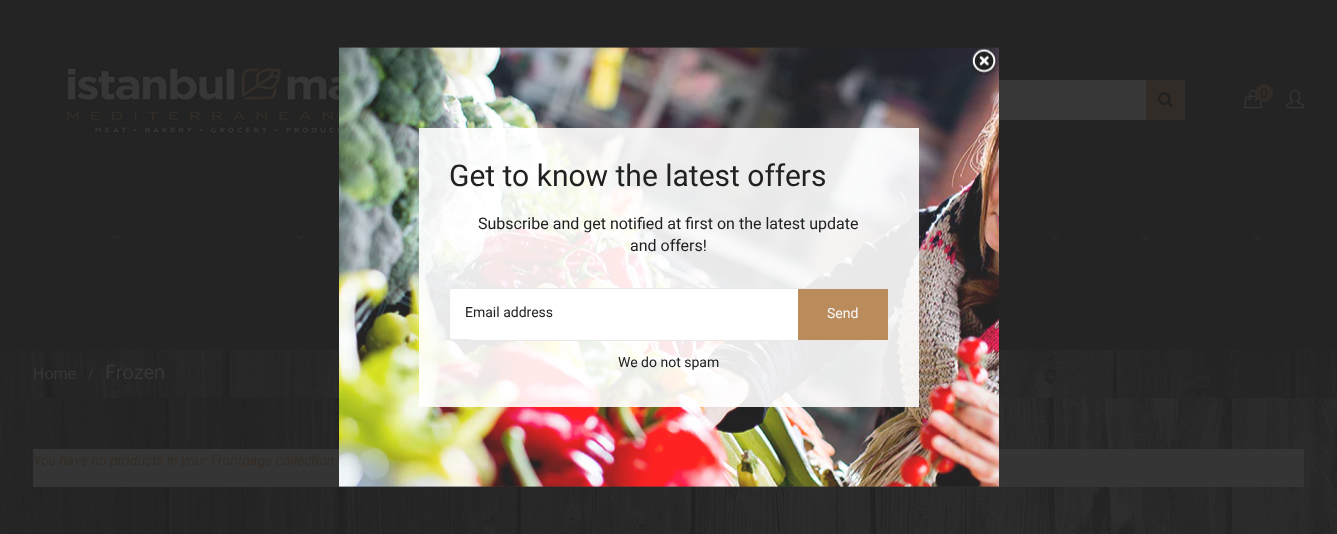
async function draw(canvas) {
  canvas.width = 1337
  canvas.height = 534
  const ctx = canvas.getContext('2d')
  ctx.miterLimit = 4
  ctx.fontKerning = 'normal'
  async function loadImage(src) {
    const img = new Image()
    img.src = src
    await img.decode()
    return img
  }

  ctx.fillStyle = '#fff'
  ctx.fillRect(0, 0, 1337, 534)
  ctx.drawImage(await loadImage('image0.png'), 0, 398, 1337, 136)
  ctx.fillStyle = '#252424'
  ctx.fillRect(0, 0, 1337, 350)
  ctx.drawImage(await loadImage('image1.png'), 65, 64, 274, 72)
  ctx.fillStyle = '#373737'
  ctx.fillRect(999, 80, 147, 40)
  ctx.fillStyle = '#312c27'
  ctx.fillRect(1146, 80, 39, 40)
  ctx.drawImage(await loadImage('image2.png'), 1158, 92, 15, 16)
  ctx.drawImage(await loadImage('image3.png'), 1244, 90, 18, 19)
  ctx.beginPath()
  ctx.arc(1264, 93, 9, 0, 2 * Math.PI)
  ctx.fill()
  ctx.font = '14px Roboto'
  ctx.fillStyle = '#212121'
  ctx.fillText('0', 1260, 98)
  ctx.drawImage(await loadImage('image4.png'), 1286, 90, 18, 19)
  ctx.drawImage(await loadImage('image5.png'), 111, 234, 8, 6)
  ctx.drawImage(await loadImage('image5.png'), 296, 234, 8, 6)
  ctx.drawImage(await loadImage('image5.png'), 1051, 234, 8, 6)
  ctx.drawImage(await loadImage('image5.png'), 1141, 234, 8, 6)
  ctx.drawImage(await loadImage('image5.png'), 1253, 234, 8, 6)
  ctx.drawImage(await loadImage('image6.png'), 0, 350, 1337, 48)
  ctx.font = '16px Roboto'
  ctx.fillStyle = '#373737'
  ctx.fillText('Home', 33, 379)
  ctx.font = '14px Roboto'
  ctx.fillText('/', 88, 379)
  ctx.font = '20px Roboto'
  ctx.fillText('Frozen', 105, 379)
  ctx.fillStyle = '#353535'
  ctx.fillRect(33, 449, 1271, 38)
  ctx.font = 'italic 14px Roboto'
  ctx.fillStyle = '#362c23'
  ctx.fillText('You have no products in your Frontpage collection.', 33, 465)
  ctx.drawImage(await loadImage('image7.png'), 339, 47, 660, 440)
  ctx.drawImage(await loadImage('image8.png'), 971, 48, 27, 28)
  ctx.fillStyle = '#ffffffe6'
  ctx.fillRect(419, 128, 500, 279)
  ctx.font = '30px Roboto'
  ctx.fillStyle = '#212121'
  ctx.fillText('Get to know the latest offers', 449, 186)
  ctx.font = '16px Roboto'
  ctx.fillText('Subscribe and get notified at first on the latest update', 478, 229)
  ctx.fillText('and offers!', 630, 251)
  ctx.fillStyle = '#fff'
  ctx.beginPath()
  ctx.roundRect(449.5, 288.5, 439, 52, 26)
  ctx.fill()
  ctx.strokeStyle = '#e8e8e8'
  ctx.stroke()
  ctx.beginPath()
  ctx.roundRect(450, 289, 350, 50, 2)
  ctx.fill()
  ctx.font = '14px Roboto'
  ctx.fillStyle = '#212121'
  ctx.fillText('Email address', 465, 317)
  ctx.fillStyle = '#ba8c5c'
  ctx.fillRect(798, 289, 90, 51)
  ctx.fillStyle = '#f8f8f8'
  ctx.fillText('Send', 827, 318)
  ctx.fillStyle = '#212121'
  ctx.fillText('We do not spam', 618, 367)
}

draw(document.querySelector('canvas'))
